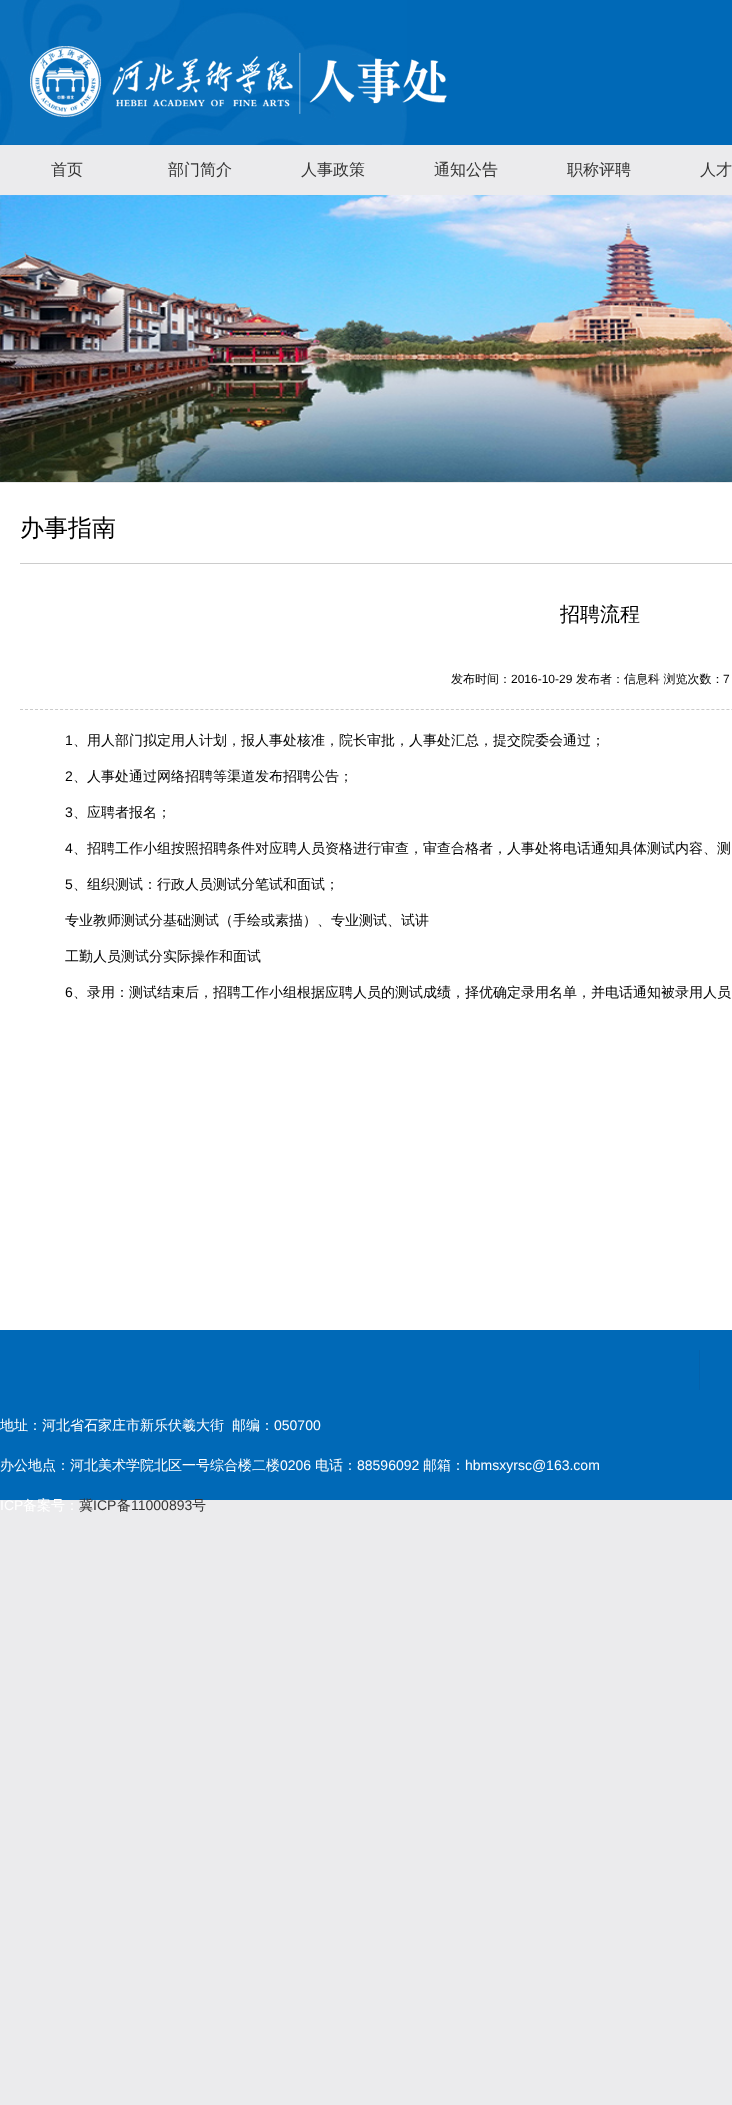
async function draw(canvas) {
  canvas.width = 732
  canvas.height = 2105
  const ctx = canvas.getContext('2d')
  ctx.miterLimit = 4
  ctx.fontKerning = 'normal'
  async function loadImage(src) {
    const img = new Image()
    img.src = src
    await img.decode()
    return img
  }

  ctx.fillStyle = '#ebebed'
  ctx.fillRect(0, 0, 732, 2105)
  ctx.fillStyle = '#0069b7'
  ctx.fillRect(407, 0, 325, 145)
  ctx.drawImage(await loadImage('image0.png'), 0, 0, 407, 145)
  ctx.drawImage(await loadImage('image1.png'), 30, 46, 417, 71)
  ctx.font = '500 16px WenQuanYi Zen Hei'
  ctx.fillStyle = '#333'
  ctx.fillText('首页', 51, 175)
  ctx.fillText('部门简介', 168, 175)
  ctx.fillText('人事政策', 301, 175)
  ctx.fillText('通知公告', 434, 175)
  ctx.fillText('职称评聘', 567, 175)
  ctx.fillText('人才', 700, 175)
  ctx.drawImage(await loadImage('image2.png'), 0, 195, 732, 287)
  ctx.fillStyle = '#fff'
  ctx.fillRect(0, 483, 732, 847)
  ctx.fillStyle = '#ccc'
  ctx.fillRect(20, 563, 712, 1)
  ctx.font = '500 24px WenQuanYi Zen Hei'
  ctx.fillStyle = '#000'
  ctx.fillText('办事指南', 20, 536)
  ctx.font = '500 20px WenQuanYi Zen Hei'
  ctx.fillText('招聘流程', 560, 621)
  ctx.beginPath()
  ctx.moveTo(20, 709.5)
  ctx.lineTo(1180, 709.5)
  ctx.strokeStyle = '#ccc'
  ctx.setLineDash([3, 2.01])
  ctx.stroke()
  ctx.font = '500 12px WenQuanYi Zen Hei'
  ctx.fillText('发布时间：', 451, 683)
  ctx.font = '12px Liberation Sans'
  ctx.fillText('2016-10-29', 511, 683)
  ctx.font = '500 12px WenQuanYi Zen Hei'
  ctx.fillText('发布者：信息科 浏览次数：', 576, 683)
  ctx.font = '12px Liberation Sans'
  ctx.fillText('7', 723, 683)
  ctx.font = '14px Liberation Sans'
  ctx.fillText('1', 65, 745)
  ctx.font = '500 14px WenQuanYi Zen Hei'
  ctx.fillText('、用人部门拟定用人计划，报人事处核准，院长审批，人事处汇总，提交院委会通过；', 73, 745)
  ctx.font = '14px Liberation Sans'
  ctx.fillText('2', 65, 781)
  ctx.font = '500 14px WenQuanYi Zen Hei'
  ctx.fillText('、人事处通过网络招聘等渠道发布招聘公告；', 73, 781)
  ctx.font = '14px Liberation Sans'
  ctx.fillText('3', 65, 817)
  ctx.font = '500 14px WenQuanYi Zen Hei'
  ctx.fillText('、应聘者报名；', 73, 817)
  ctx.font = '14px Liberation Sans'
  ctx.fillText('4', 65, 853)
  ctx.font = '500 14px WenQuanYi Zen Hei'
  ctx.fillText('、招聘工作小组按照招聘条件对应聘人员资格进行审查，审查合格者，人事处将电话通知具体测试内容、测', 73, 853)
  ctx.font = '14px Liberation Sans'
  ctx.fillText('5', 65, 889)
  ctx.font = '500 14px WenQuanYi Zen Hei'
  ctx.fillText('、组织测试：行政人员测试分笔试和面试；', 73, 889)
  ctx.fillText('专业教师测试分基础测试（手绘或素描）、专业测试、试讲', 65, 925)
  ctx.fillText('工勤人员测试分实际操作和面试', 65, 961)
  ctx.font = '14px Liberation Sans'
  ctx.fillText('6', 65, 997)
  ctx.font = '500 14px WenQuanYi Zen Hei'
  ctx.fillText('、录用：测试结束后，招聘工作小组根据应聘人员的测试成绩，择优确定录用名单，并电话通知被录用人员', 73, 997)
  ctx.fillStyle = '#0069b7'
  ctx.fillRect(0, 1330, 732, 170)
  ctx.fillStyle = '#0462ac'
  ctx.fillRect(699, 1350, 1, 40)
  ctx.fillStyle = '#fff'
  ctx.fillText('地址：河北省石家庄市新乐伏羲大街', 0, 1430)
  ctx.fillText('邮编：', 232, 1430)
  ctx.font = '14px Liberation Sans'
  ctx.fillText('050700', 274, 1430)
  ctx.font = '500 14px WenQuanYi Zen Hei'
  ctx.fillText('办公地点：河北美术学院北区一号综合楼二楼', 0, 1470)
  ctx.font = '14px Liberation Sans'
  ctx.fillText('0206', 280, 1470)
  ctx.font = '500 14px WenQuanYi Zen Hei'
  ctx.fillText('电话：', 315, 1470)
  ctx.font = '14px Liberation Sans'
  ctx.fillText('88596092', 357, 1470)
  ctx.font = '500 14px WenQuanYi Zen Hei'
  ctx.fillText('邮箱：', 423, 1470)
  ctx.font = '14px Liberation Sans'
  ctx.fillText('hbmsxyrsc@163.com', 465, 1470)
  ctx.fillText('ICP', 0, 1510)
  ctx.font = '500 14px WenQuanYi Zen Hei'
  ctx.fillText('备案号：', 23, 1510)
  ctx.fillStyle = '#333'
  ctx.fillText('冀', 79, 1510)
  ctx.font = '14px Liberation Sans'
  ctx.fillText('ICP', 93, 1510)
  ctx.font = '500 14px WenQuanYi Zen Hei'
  ctx.fillText('备', 117, 1510)
  ctx.font = '14px Liberation Sans'
  ctx.fillText('11000893', 131, 1510)
  ctx.font = '500 14px WenQuanYi Zen Hei'
  ctx.fillText('号', 192, 1510)
}

draw(document.querySelector('canvas'))
